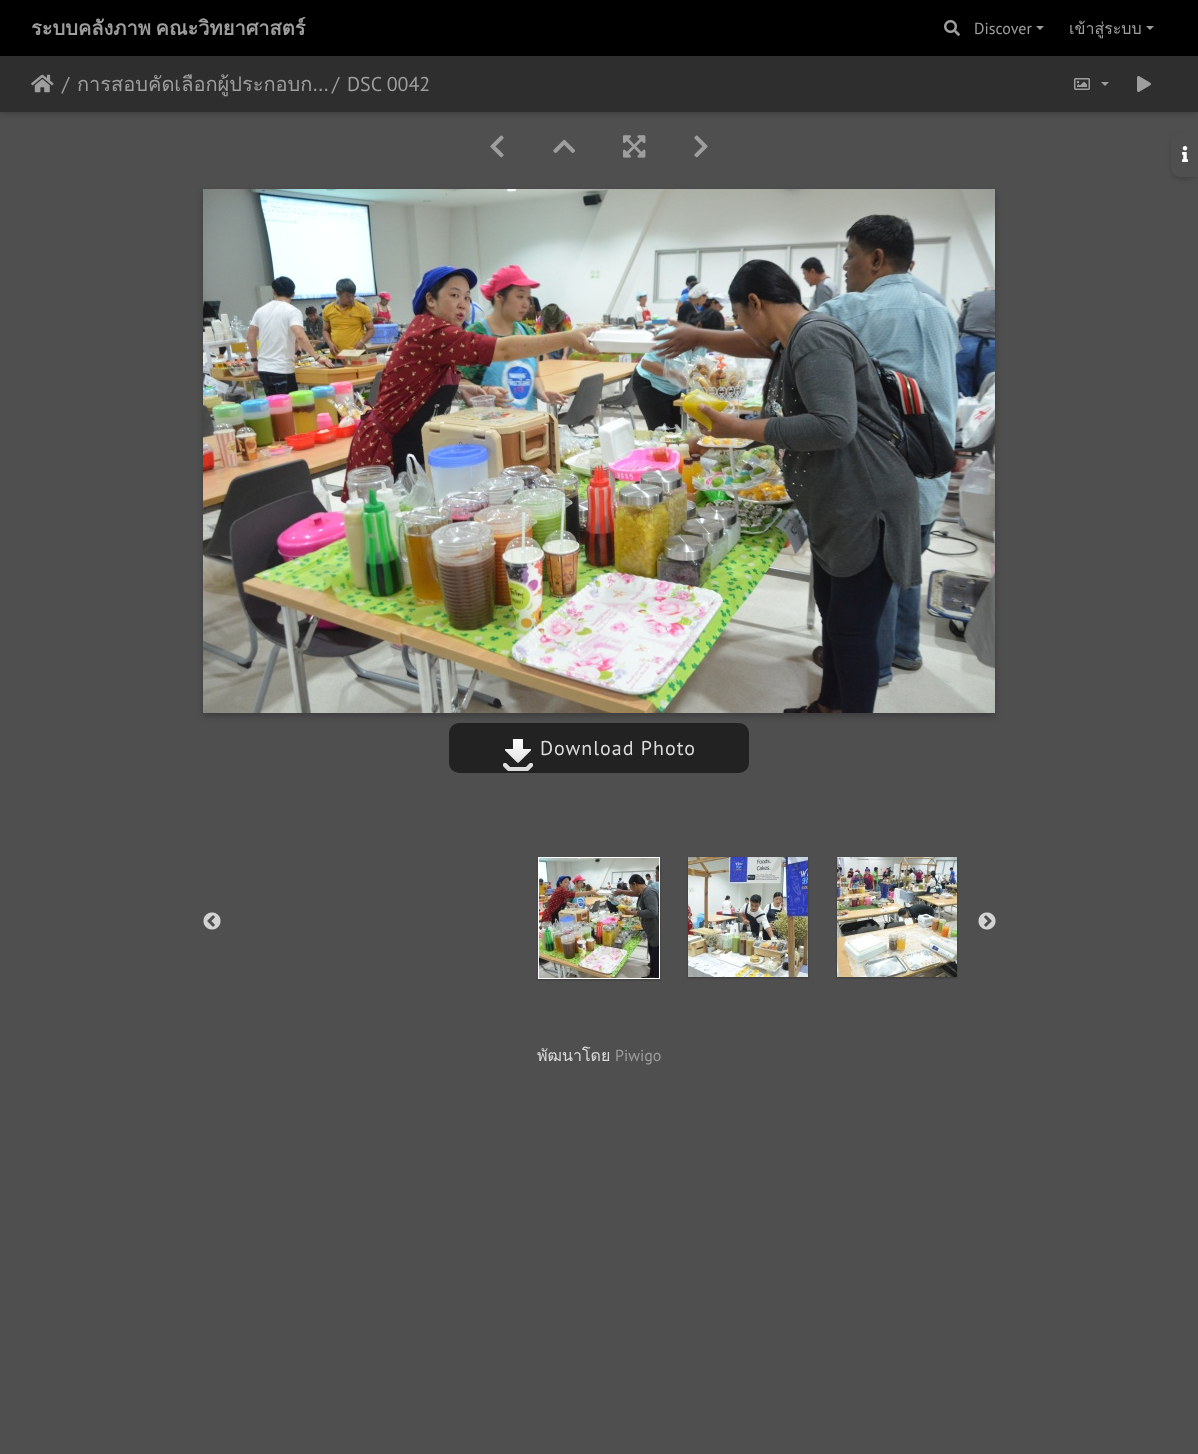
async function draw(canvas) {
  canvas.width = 1198
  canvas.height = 1454
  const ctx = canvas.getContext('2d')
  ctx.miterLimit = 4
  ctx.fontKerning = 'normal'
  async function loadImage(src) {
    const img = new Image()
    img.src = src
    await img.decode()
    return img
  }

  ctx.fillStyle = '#4f4f4f'
  ctx.fillRect(0, 0, 1198, 1454)
  ctx.fillStyle = '#00000033'
  ctx.filter = 'blur(2.5px)'
  ctx.beginPath()
  ctx.rect(1, 60, 1196, 54)
  ctx.fill()
  ctx.filter = 'none'
  ctx.fillStyle = '#000'
  ctx.fillRect(0, 0, 1198, 56)
  ctx.wordSpacing = '-2px'
  ctx.font = 'bold 20px Loma'
  ctx.fillStyle = '#9e9e9e'
  ctx.fillText('ระบบคลังภาพ คณะวิทยาศาสตร์', 31, 35)
  ctx.drawImage(await loadImage('image0.png'), 944, 20, 16, 16)
  ctx.wordSpacing = '0px'
  ctx.font = '16px PT Sans'
  ctx.fillText('Discover', 974, 34)
  ctx.beginPath()
  ctx.moveTo(1036, 26)
  ctx.lineTo(1044, 26)
  ctx.lineTo(1040, 30)
  ctx.closePath()
  ctx.fill()
  ctx.font = '16px Loma'
  ctx.fillText('เข้าสู่ระบบ', 1069, 34)
  ctx.beginPath()
  ctx.moveTo(1146, 26)
  ctx.lineTo(1154, 26)
  ctx.lineTo(1150, 30)
  ctx.closePath()
  ctx.fill()
  ctx.fillStyle = '#2e2e2e'
  ctx.fillRect(0, 56, 1198, 56)
  ctx.drawImage(await loadImage('image1.png'), 31, 74, 23, 19)
  ctx.font = '20px PT Sans'
  ctx.fillStyle = '#9e9e9e'
  ctx.fillText('/', 62, 91)
  ctx.font = '20px Loma'
  ctx.fillText('การสอบคัดเลือกผู้ประกอบก…', 77, 91)
  ctx.font = '20px PT Sans'
  ctx.fillText('/', 332, 91)
  ctx.fillText('DSC 0042', 347, 91)
  ctx.drawImage(await loadImage('image2.png'), 1074, 78, 16, 12)
  ctx.beginPath()
  ctx.moveTo(1101, 82)
  ctx.lineTo(1109, 82)
  ctx.lineTo(1105, 86)
  ctx.closePath()
  ctx.fill()
  ctx.drawImage(await loadImage('image3.png'), 1137, 76, 14, 16)
  ctx.drawImage(await loadImage('image4.png'), 490, 135, 14, 23)
  ctx.drawImage(await loadImage('image5.png'), 553, 139, 22, 14)
  ctx.drawImage(await loadImage('image6.png'), 623, 135, 23, 23)
  ctx.drawImage(await loadImage('image7.png'), 694, 135, 14, 23)
  ctx.fillStyle = '#00000033'
  ctx.filter = 'blur(2.5px)'
  ctx.beginPath()
  ctx.roundRect(1172, 135, 25, 44, 9)
  ctx.fill()
  ctx.filter = 'none'
  ctx.fillStyle = '#4f4f4f'
  ctx.beginPath()
  ctx.roundRect(1171, 131, 27, 46, [10, 0, 0, 10])
  ctx.fill()
  ctx.beginPath()
  ctx.moveTo(1181, 131)
  ctx.lineTo(1198, 131)
  ctx.lineTo(1198, 177)
  ctx.lineTo(1181, 177)
  ctx.bezierCurveTo(1175, 177, 1171, 173, 1171, 167)
  ctx.lineTo(1171, 141)
  ctx.bezierCurveTo(1171, 135, 1175, 131, 1181, 131)
  ctx.closePath()
  ctx.moveTo(1181, 132)
  ctx.lineTo(1198, 132)
  ctx.lineTo(1198, 176)
  ctx.lineTo(1181, 176)
  ctx.bezierCurveTo(1176, 176, 1172, 172, 1172, 167)
  ctx.lineTo(1172, 141)
  ctx.bezierCurveTo(1172, 136, 1176, 132, 1181, 132)
  ctx.closePath()
  ctx.fill('evenodd')
  ctx.drawImage(await loadImage('image8.png'), 1182, 146, 6, 16)
  ctx.fillStyle = '#222'
  ctx.beginPath()
  ctx.roundRect(449, 723, 300, 50, 10)
  ctx.fill()
  ctx.fillStyle = '#0000003b'
  ctx.filter = 'blur(3px)'
  ctx.beginPath()
  ctx.rect(203, 192, 792, 524)
  ctx.fill()
  ctx.filter = 'none'
  ctx.drawImage(await loadImage('image9.png'), 203, 189, 792, 524)
  ctx.drawImage(await loadImage('image10.png'), 503, 739, 30, 32)
  ctx.letterSpacing = '1px'
  ctx.fillStyle = '#dbdbdb'
  ctx.fillText('Download Photo', 540, 755)
  ctx.drawImage(await loadImage('image11.png'), 203, 912, 18, 18)
  ctx.fillStyle = '#0000003d'
  ctx.filter = 'blur(1px)'
  ctx.beginPath()
  ctx.rect(538, 858, 122, 122)
  ctx.fill()
  ctx.filter = 'none'
  ctx.strokeStyle = '#fff'
  ctx.strokeRect(538.5, 857.5, 121, 121)
  ctx.drawImage(await loadImage('image12.png'), 539, 858, 120, 120)
  ctx.filter = 'blur(1px)'
  ctx.beginPath()
  ctx.rect(688, 858, 120, 120)
  ctx.fill()
  ctx.filter = 'none'
  ctx.drawImage(await loadImage('image13.png'), 688, 857, 120, 120)
  ctx.filter = 'blur(1px)'
  ctx.beginPath()
  ctx.rect(837, 858, 120, 120)
  ctx.fill()
  ctx.filter = 'none'
  ctx.drawImage(await loadImage('image14.png'), 837, 857, 120, 120)
  ctx.drawImage(await loadImage('image15.png'), 978, 912, 18, 18)
  ctx.letterSpacing = '0px'
  ctx.font = '16px Loma'
  ctx.fillStyle = '#dbdbdb'
  ctx.fillText('พัฒนาโดย', 537, 1061)
  ctx.font = '16px PT Sans'
  ctx.fillStyle = '#9e9e9e'
  ctx.fillText('Piwigo', 615, 1061)
}

draw(document.querySelector('canvas'))
